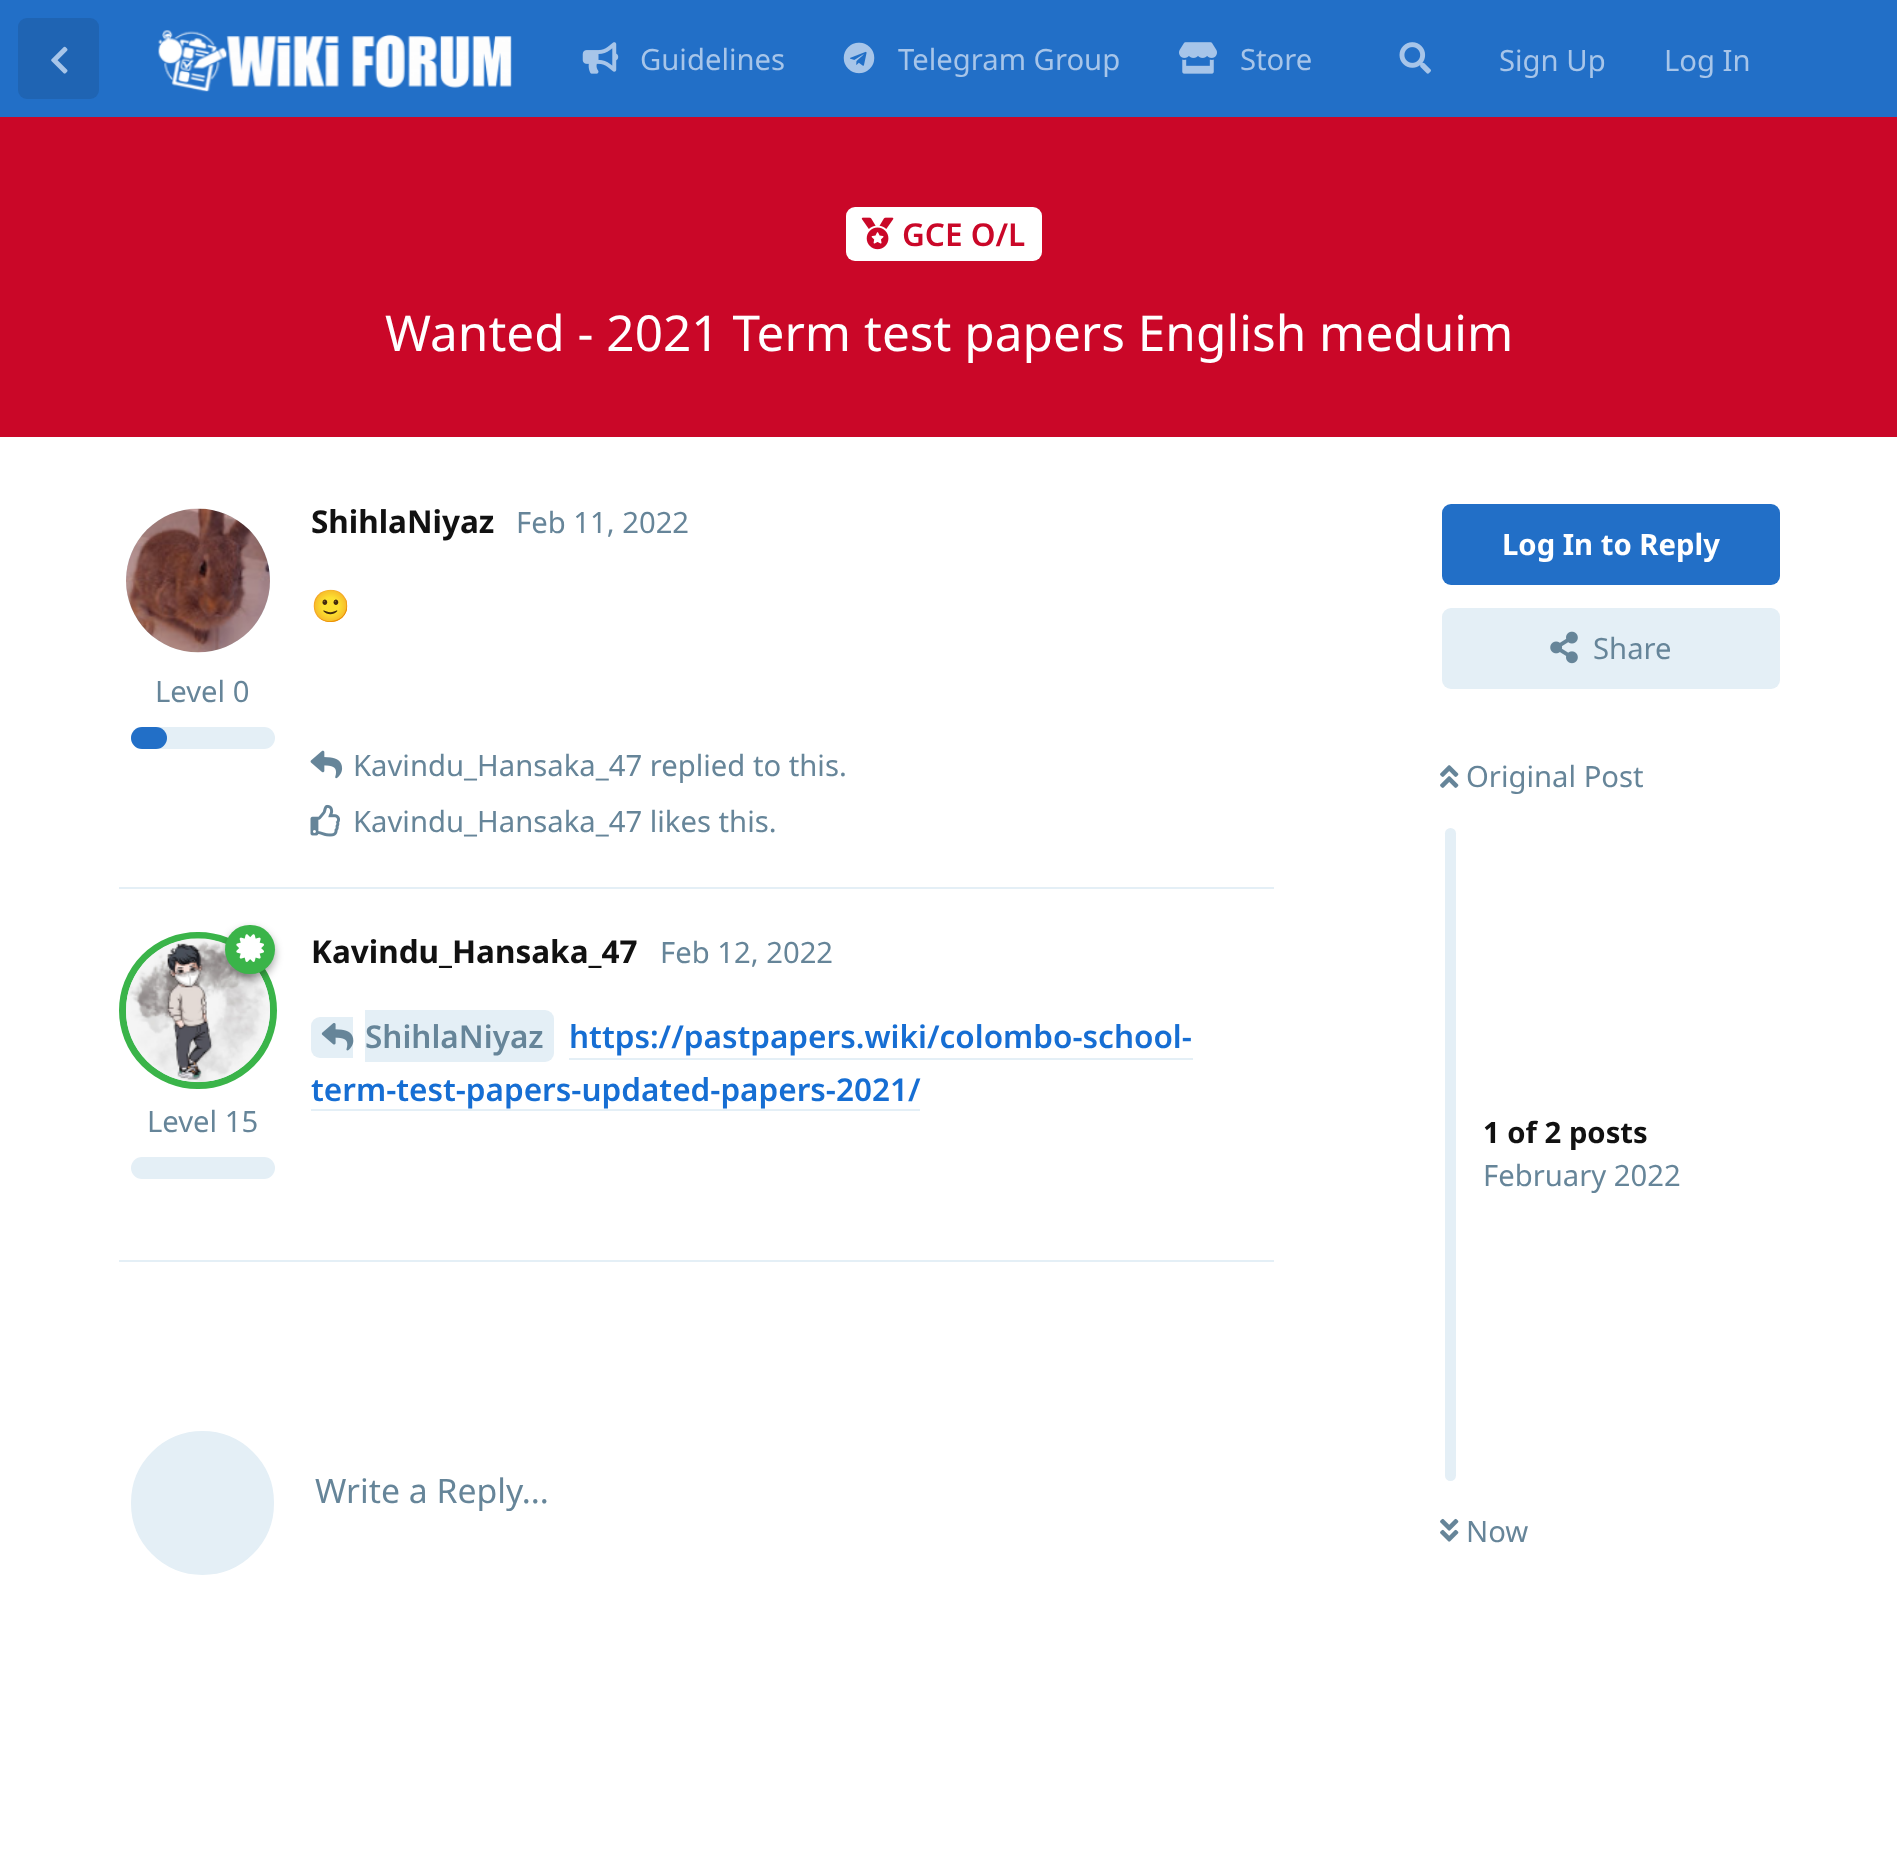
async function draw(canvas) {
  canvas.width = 1897
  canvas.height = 1874
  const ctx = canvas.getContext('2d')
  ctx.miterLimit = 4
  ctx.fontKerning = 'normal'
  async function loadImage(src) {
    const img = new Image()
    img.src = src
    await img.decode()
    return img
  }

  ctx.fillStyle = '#fff'
  ctx.fillRect(0, 0, 1897, 1874)
  ctx.fillStyle = '#226fc7'
  ctx.fillRect(0, 0, 1897, 117)
  ctx.fillStyle = '#1f64b3'
  ctx.beginPath()
  ctx.roundRect(18, 18, 81, 81, 9)
  ctx.fill()
  ctx.drawImage(await loadImage('image0.png'), 51, 46, 17, 28)
  ctx.drawImage(await loadImage('image1.png'), 158, 30, 354, 62)
  ctx.drawImage(await loadImage('image2.png'), 582, 42, 37, 32)
  ctx.font = '29.25px Noto Sans'
  ctx.fillStyle = '#a7c5e9'
  ctx.fillText('Guidelines', 640, 70)
  ctx.drawImage(await loadImage('image3.png'), 843, 42, 32, 32)
  ctx.fillText('Telegram Group', 898, 70)
  ctx.drawImage(await loadImage('image4.png'), 1179, 42, 38, 32)
  ctx.fillText('Store', 1240, 70)
  ctx.drawImage(await loadImage('image5.png'), 1399, 42, 32, 32)
  ctx.fillText('Sign Up', 1499, 71)
  ctx.fillText('Log In', 1664, 71)
  ctx.fillStyle = '#ca0728'
  ctx.fillRect(0, 117, 1897, 320)
  ctx.fillStyle = '#fff'
  ctx.beginPath()
  ctx.roundRect(846, 207, 196, 54, 9)
  ctx.fill()
  ctx.drawImage(await loadImage('image6.png'), 861, 217, 33, 33)
  ctx.font = '600 31.5px Noto Sans'
  ctx.fillStyle = '#ca0728'
  ctx.fillText('GCE O/L', 902, 246)
  ctx.font = '49.5px Noto Sans'
  ctx.fillStyle = '#fff'
  ctx.fillText('Wanted - 2021 Term test papers English meduim', 385, 351)
  ctx.fillStyle = '#e4eff6'
  ctx.fillRect(119, 887, 1155, 2)
  ctx.beginPath()
  ctx.roundRect(122.5, 505.5, 151, 150, 75)
  ctx.fill()
  ctx.strokeStyle = '#fff'
  ctx.lineWidth = 7
  ctx.stroke()
  ctx.drawImage(await loadImage('image7.png'), 126, 508, 144, 145)
  ctx.font = 'bold 31.5px Noto Sans'
  ctx.fillStyle = '#111'
  ctx.fillText('ShihlaNiyaz', 311, 533)
  ctx.font = '29.25px Noto Sans'
  ctx.fillStyle = '#668599'
  ctx.fillText('Level 0', 155, 702)
  ctx.fillStyle = '#e4eff6'
  ctx.beginPath()
  ctx.roundRect(131, 727, 144, 22, 11)
  ctx.fill()
  ctx.fillStyle = '#226fc7'
  ctx.beginPath()
  ctx.roundRect(131, 727, 36, 22, 11)
  ctx.fill()
  ctx.fillStyle = '#668599'
  ctx.fillText('Feb 11, 2022', 516, 533)
  ctx.save()
  ctx.beginPath()
  ctx.rect(311, 578, 963, 86)
  ctx.clip()
  ctx.font = '31.5px Noto Color Emoji'
  ctx.fillStyle = '#111'
  ctx.fillText('🙂', 311, 617)
  ctx.restore()
  ctx.drawImage(await loadImage('image8.png'), 310, 750, 33, 29)
  ctx.fillText('Kavindu_Hansaka_47 replied to this.', 353, 776)
  ctx.drawImage(await loadImage('image9.png'), 310, 804, 30, 33)
  ctx.fillText('Kavindu_Hansaka_47 likes this.', 353, 832)
  ctx.fillStyle = '#e4eff6'
  ctx.fillRect(119, 1260, 1155, 2)
  ctx.beginPath()
  ctx.roundRect(122.5, 935.5, 151, 150, 75)
  ctx.fill()
  ctx.strokeStyle = '#3ab449'
  ctx.stroke()
  ctx.drawImage(await loadImage('image11.png'), 126, 938, 144, 145)
  ctx.fillStyle = '#00000059'
  ctx.filter = 'blur(4.5px)'
  ctx.beginPath()
  ctx.roundRect(225, 929, 50, 50, 25)
  ctx.fill()
  ctx.filter = 'none'
  ctx.fillStyle = '#3ab449'
  ctx.beginPath()
  ctx.roundRect(225, 925, 50, 49, 24.5)
  ctx.fill()
  ctx.drawImage(await loadImage('image10.png'), 236, 934, 28, 28)
  ctx.font = 'bold 31.5px Noto Sans'
  ctx.fillStyle = '#111'
  ctx.fillText('Kavindu_Hansaka_47', 311, 963)
  ctx.font = '29.25px Noto Sans'
  ctx.fillStyle = '#668599'
  ctx.fillText('Level 15', 147, 1132)
  ctx.fillStyle = '#e4eff6'
  ctx.beginPath()
  ctx.roundRect(131, 1157, 144, 22, 11)
  ctx.fill()
  ctx.fillStyle = '#668599'
  ctx.fillText('Feb 12, 2022', 660, 963)
  ctx.fillStyle = '#e4eff6'
  ctx.beginPath()
  ctx.roundRect(311, 1017, 42, 41, [9, 0, 0, 9])
  ctx.fill()
  ctx.beginPath()
  ctx.roundRect(365, 1010, 189, 52, [0, 9, 9, 0])
  ctx.fill()
  ctx.drawImage(await loadImage('image12.png'), 321, 1023, 33, 28)
  ctx.font = '600 31.5px Noto Sans'
  ctx.fillStyle = '#668599'
  ctx.fillText('ShihlaNiyaz', 365, 1048)
  ctx.fillStyle = '#166ed3'
  ctx.fillText('https://pastpapers.wiki/colombo-school-', 569, 1048)
  ctx.fillStyle = '#e4eff6'
  ctx.fillRect(569, 1058, 624, 2)
  ctx.fillStyle = '#166ed3'
  ctx.fillText('term-test-papers-updated-papers-2021/', 311, 1101)
  ctx.fillStyle = '#e4eff6'
  ctx.fillRect(311, 1109, 609, 2)
  ctx.beginPath()
  ctx.roundRect(127.5, 1427.5, 150, 151, 75)
  ctx.fill()
  ctx.strokeStyle = '#fff'
  ctx.stroke()
  ctx.font = '33.75px Noto Sans'
  ctx.fillStyle = '#668599'
  ctx.fillText('Write a Reply...', 315, 1503)
  ctx.fillStyle = '#226fc7'
  ctx.beginPath()
  ctx.roundRect(1442, 504, 338, 81, 9)
  ctx.fill()
  ctx.font = 'bold 29.25px Noto Sans'
  ctx.fillStyle = '#fff'
  ctx.fillText('Log In to Reply', 1502, 555)
  ctx.fillStyle = '#e4eff6'
  ctx.beginPath()
  ctx.roundRect(1442, 608, 338, 81, 9)
  ctx.fill()
  ctx.drawImage(await loadImage('image13.png'), 1550, 631, 28, 33)
  ctx.font = '29.25px Noto Sans'
  ctx.fillStyle = '#668599'
  ctx.fillText('Share', 1593, 659)
  ctx.drawImage(await loadImage('image14.png'), 1440, 765, 19, 23)
  ctx.fillText('Original Post', 1466, 787)
  ctx.fillStyle = '#e4eff6'
  ctx.beginPath()
  ctx.roundRect(1445, 828, 11, 653, 5.5)
  ctx.fill()
  ctx.font = 'bold 29.25px Noto Sans'
  ctx.fillStyle = '#111'
  ctx.fillText('1 of 2 posts', 1483, 1143)
  ctx.font = '29.25px Noto Sans'
  ctx.fillStyle = '#668599'
  ctx.fillText('February 2022', 1483, 1186)
  ctx.drawImage(await loadImage('image15.png'), 1440, 1518, 19, 24)
  ctx.fillText('Now', 1466, 1542)
}

draw(document.querySelector('canvas'))
